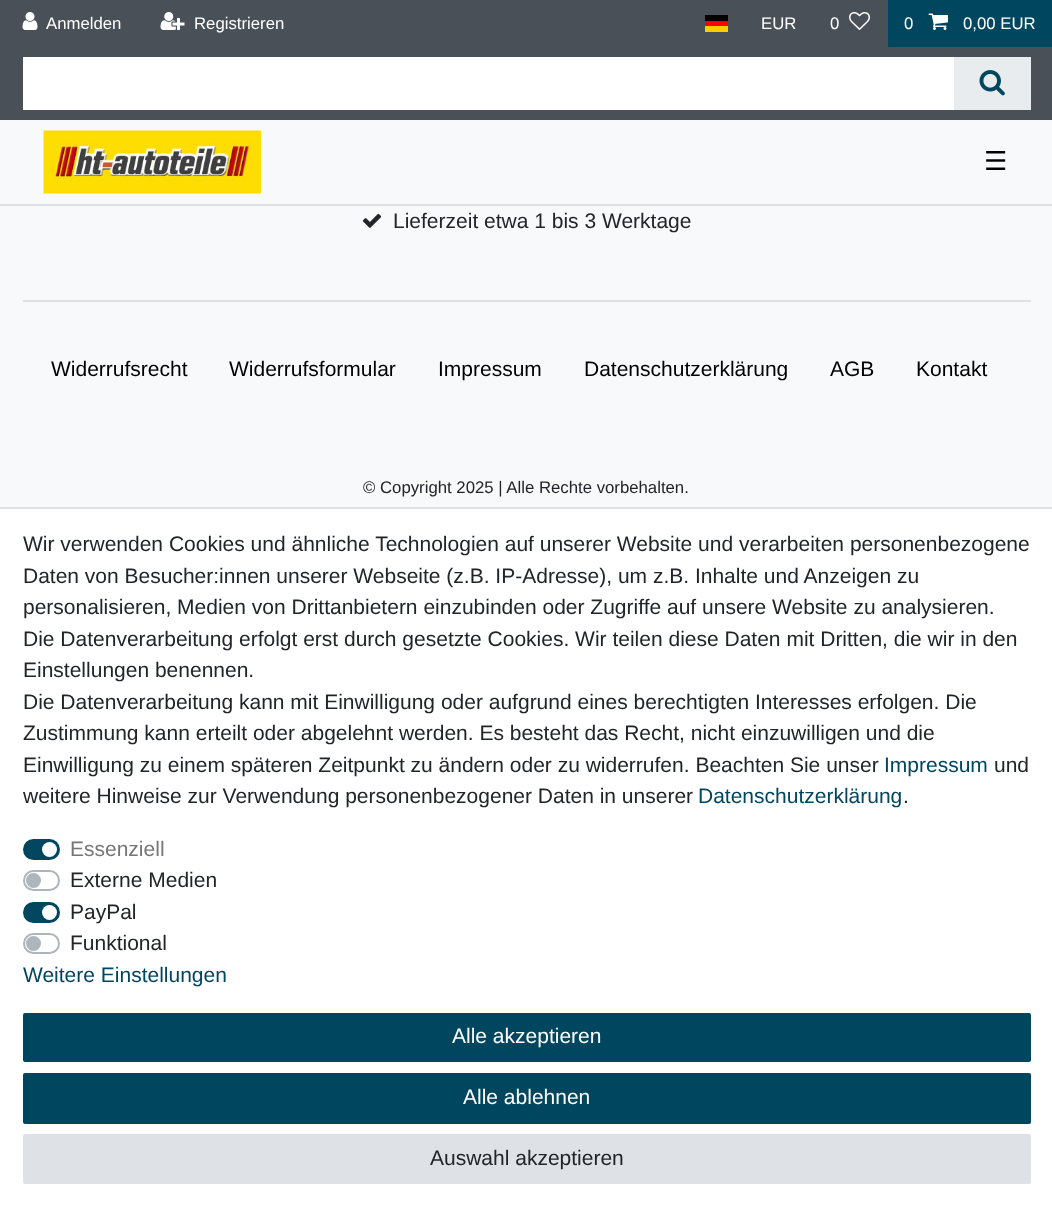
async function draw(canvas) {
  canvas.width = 1052
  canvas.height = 1214
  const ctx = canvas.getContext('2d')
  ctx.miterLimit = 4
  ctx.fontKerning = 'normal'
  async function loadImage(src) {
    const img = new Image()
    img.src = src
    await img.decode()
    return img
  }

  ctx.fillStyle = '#f8f9fa'
  ctx.fillRect(0, 0, 1052, 1214)
  ctx.fillStyle = '#495057'
  ctx.fillRect(0, 0, 1052, 120)
  ctx.drawImage(await loadImage('image0.png'), 22, 12, 16, 18)
  ctx.font = '16.75px Liberation Sans'
  ctx.fillStyle = '#fff'
  ctx.fillText('Anmelden', 46, 29)
  ctx.drawImage(await loadImage('image1.png'), 160, 12, 25, 18)
  ctx.fillText('Registrieren', 194, 29)
  ctx.fillStyle = '#fc0'
  ctx.fillRect(705, 26, 23, 6)
  ctx.fillStyle = '#000'
  ctx.fillRect(705, 15, 23, 6)
  ctx.fillStyle = '#f00'
  ctx.fillRect(705, 21, 23, 5)
  ctx.fillStyle = '#fff'
  ctx.fillText('EUR', 761, 29)
  ctx.fillText('0', 830, 29)
  ctx.drawImage(await loadImage('image2.png'), 849, 12, 21, 18)
  ctx.fillStyle = '#00465e'
  ctx.fillRect(888, 0, 164, 47)
  ctx.fillStyle = '#fff'
  ctx.fillText('0', 904, 29)
  ctx.drawImage(await loadImage('image3.png'), 928, 13, 20, 17)
  ctx.fillText('0,00 EUR', 963, 29)
  ctx.fillRect(23, 57, 931, 53)
  ctx.fillStyle = '#e9ecef'
  ctx.fillRect(954, 57, 77, 53)
  ctx.drawImage(await loadImage('image4.png'), 979, 70, 26, 26)
  ctx.fillStyle = '#dee2e6'
  ctx.fillRect(0, 204, 1052, 2)
  ctx.drawImage(await loadImage('image5.png'), 43, 130, 218, 64)
  ctx.font = '26px DejaVu Sans'
  ctx.fillStyle = '#000'
  ctx.fillText('☰', 984, 170)
  ctx.drawImage(await loadImage('image6.png'), 362, 213, 20, 15)
  ctx.font = '21px Liberation Sans'
  ctx.fillStyle = '#212529'
  ctx.fillText('Lieferzeit etwa 1 bis 3 Werktage', 393, 228)
  ctx.fillStyle = '#fff'
  ctx.fillRect(0, 509, 1052, 705)
  ctx.fillStyle = '#dee2e6'
  ctx.fillRect(0, 507, 1052, 2)
  ctx.fillStyle = '#212529'
  ctx.fillText('Wir verwenden Cookies und ähnliche Technologien auf unserer Website und verarbeiten personenbezogene', 23, 551)
  ctx.fillText('Daten von Besucher:innen unserer Webseite (z.B. IP-Adresse), um z.B. Inhalte und Anzeigen zu', 23, 583)
  ctx.fillText('personalisieren, Medien von Drittanbietern einzubinden oder Zugriffe auf unsere Website zu analysieren.', 23, 614)
  ctx.fillText('Die Datenverarbeitung erfolgt erst durch gesetzte Cookies. Wir teilen diese Daten mit Dritten, die wir in den', 23, 646)
  ctx.fillText('Einstellungen benennen.', 23, 677)
  ctx.fillText('Die Datenverarbeitung kann mit Einwilligung oder aufgrund eines berechtigten Interesses erfolgen. Die', 23, 709)
  ctx.fillText('Zustimmung kann erteilt oder abgelehnt werden. Es besteht das Recht, nicht einzuwilligen und die', 23, 740)
  ctx.fillText('Einwilligung zu einem späteren Zeitpunkt zu ändern oder zu widerrufen. Beachten Sie unser', 23, 772)
  ctx.fillStyle = '#00465e'
  ctx.fillText('Impressum', 884, 772)
  ctx.fillStyle = '#212529'
  ctx.fillText('und', 994, 772)
  ctx.fillText('weitere Hinweise zur Verwendung personenbezogener Daten in unserer', 23, 803)
  ctx.fillStyle = '#00465e'
  ctx.fillText('Datenschutzerklärung', 698, 803)
  ctx.fillStyle = '#212529'
  ctx.fillText('.', 903, 803)
  ctx.fillStyle = '#00465e'
  ctx.beginPath()
  ctx.roundRect(24, 840, 35, 19, 9.5)
  ctx.fill()
  ctx.strokeStyle = '#00465e'
  ctx.lineWidth = 2
  ctx.stroke()
  ctx.fillStyle = '#767676'
  ctx.fillText('Essenziell', 70, 856)
  ctx.fillStyle = '#fff'
  ctx.beginPath()
  ctx.arc(49.5, 849.5, 7.5, 0, 2 * Math.PI)
  ctx.fill()
  ctx.beginPath()
  ctx.roundRect(24, 871, 35, 19, 9.5)
  ctx.strokeStyle = '#adb5bd'
  ctx.stroke()
  ctx.fillStyle = '#212529'
  ctx.fillText('Externe Medien', 70, 887)
  ctx.fillStyle = '#adb5bd'
  ctx.beginPath()
  ctx.arc(33.5, 880.5, 7.5, 0, 2 * Math.PI)
  ctx.fill()
  ctx.fillStyle = '#00465e'
  ctx.beginPath()
  ctx.roundRect(24, 903, 35, 19, 9.5)
  ctx.fill()
  ctx.strokeStyle = '#00465e'
  ctx.stroke()
  ctx.fillStyle = '#212529'
  ctx.fillText('PayPal', 70, 919)
  ctx.fillStyle = '#fff'
  ctx.beginPath()
  ctx.arc(49.5, 912.5, 7.5, 0, 2 * Math.PI)
  ctx.fill()
  ctx.beginPath()
  ctx.roundRect(24, 934, 35, 19, 9.5)
  ctx.strokeStyle = '#adb5bd'
  ctx.stroke()
  ctx.fillStyle = '#212529'
  ctx.fillText('Funktional', 70, 950)
  ctx.fillStyle = '#adb5bd'
  ctx.beginPath()
  ctx.arc(33.5, 943.5, 7.5, 0, 2 * Math.PI)
  ctx.fill()
  ctx.fillStyle = '#00465e'
  ctx.fillText('Weitere Einstellungen', 23, 982)
  ctx.beginPath()
  ctx.roundRect(24, 1014, 1006, 47, 1)
  ctx.fill()
  ctx.strokeStyle = '#00465e'
  ctx.stroke()
  ctx.fillStyle = '#fff'
  ctx.fillText('Alle akzeptieren', 452, 1043)
  ctx.fillStyle = '#00465e'
  ctx.beginPath()
  ctx.roundRect(24, 1074, 1006, 49, 1)
  ctx.fill()
  ctx.stroke()
  ctx.fillStyle = '#fff'
  ctx.fillText('Alle ablehnen', 463, 1104)
  ctx.fillStyle = '#dee2e6'
  ctx.beginPath()
  ctx.roundRect(24, 1135, 1006, 48, 1)
  ctx.fill()
  ctx.strokeStyle = '#dee2e6'
  ctx.stroke()
  ctx.fillStyle = '#212529'
  ctx.fillText('Auswahl akzeptieren', 430, 1165)
  ctx.fillStyle = '#dee2e6'
  ctx.fillRect(23, 300, 1008, 2)
  ctx.fillStyle = '#000'
  ctx.fillText('Widerrufsrecht', 51, 376)
  ctx.fillText('Widerrufsformular', 229, 376)
  ctx.fillText('Impressum', 438, 376)
  ctx.fillText('Datenschutzerklärung', 584, 376)
  ctx.fillText('AGB', 830, 376)
  ctx.fillText('Kontakt', 916, 376)
  ctx.font = '16.75px Liberation Sans'
  ctx.fillStyle = '#212529'
  ctx.fillText('© Copyright 2025 | Alle Rechte vorbehalten.', 363, 493)
}

draw(document.querySelector('canvas'))
